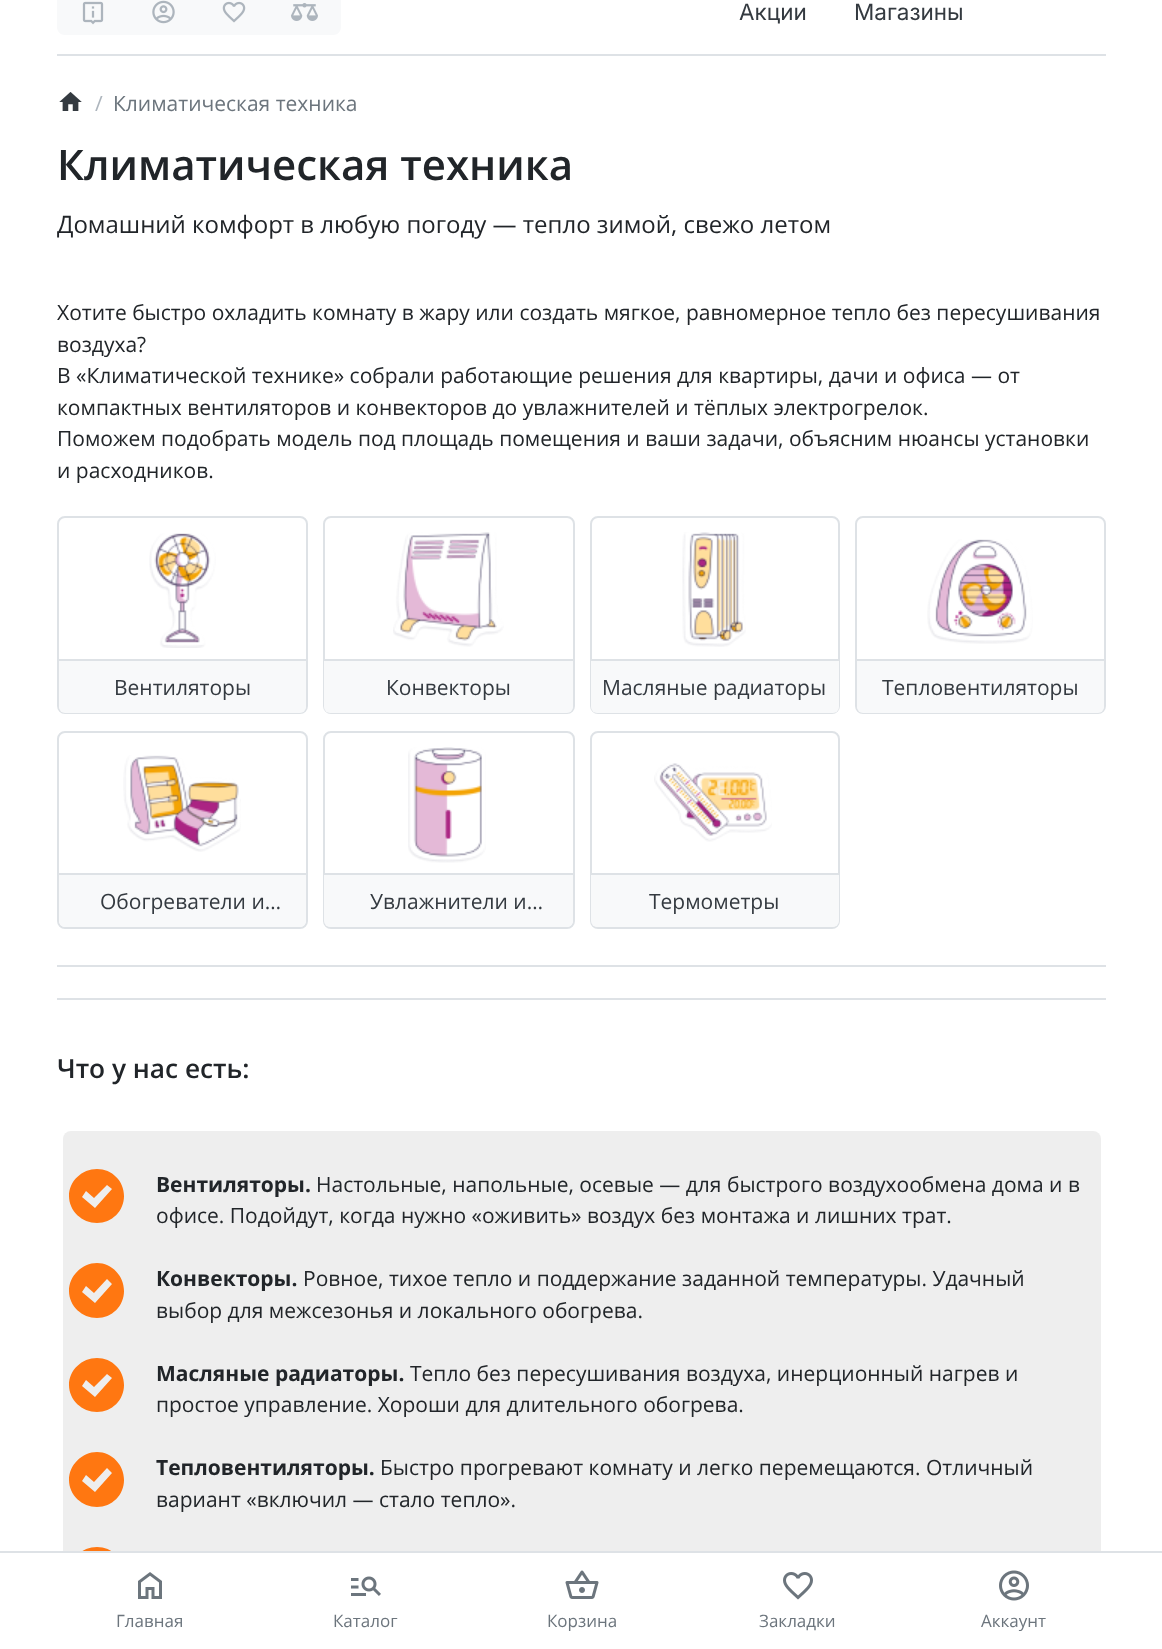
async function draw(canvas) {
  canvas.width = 1162
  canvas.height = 1649
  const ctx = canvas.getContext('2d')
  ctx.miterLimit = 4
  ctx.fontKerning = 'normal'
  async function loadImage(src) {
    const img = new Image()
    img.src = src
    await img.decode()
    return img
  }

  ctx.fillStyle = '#fff'
  ctx.fillRect(0, 0, 1162, 1649)
  ctx.fillStyle = '#f8f9fa'
  ctx.beginPath()
  ctx.moveTo(65, -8)
  ctx.lineTo(129, -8)
  ctx.lineTo(129, 35)
  ctx.lineTo(65, 35)
  ctx.bezierCurveTo(60.5, 35, 57, 31.5, 57, 27)
  ctx.lineTo(57, 0)
  ctx.bezierCurveTo(57, -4.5, 60.5, -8, 65, -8)
  ctx.closePath()
  ctx.fill()
  ctx.drawImage(await loadImage('image0.png'), 82, 1, 22, 24)
  ctx.fillRect(129, 0, 140, 35)
  ctx.drawImage(await loadImage('image1.png'), 152, 0, 23, 24)
  ctx.drawImage(await loadImage('image2.png'), 222, 1, 24, 22)
  ctx.beginPath()
  ctx.moveTo(269, -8)
  ctx.lineTo(333, -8)
  ctx.bezierCurveTo(337.5, -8, 341, -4.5, 341, 0)
  ctx.lineTo(341, 27)
  ctx.bezierCurveTo(341, 31.5, 337.5, 35, 333, 35)
  ctx.lineTo(269, 35)
  ctx.closePath()
  ctx.fill()
  ctx.drawImage(await loadImage('image3.png'), 291, 3, 27, 18)
  ctx.font = '22.5px Inter'
  ctx.fillStyle = '#343a40'
  ctx.fillText('Акции', 739, 20)
  ctx.fillText('Магазины', 854, 20)
  ctx.fillStyle = '#dee2e6'
  ctx.fillRect(57, 54, 1049, 2)
  ctx.drawImage(await loadImage('image4.png'), 59, 92, 23, 19)
  ctx.font = '21px Open Sans'
  ctx.fillStyle = '#adb5bd'
  ctx.fillText('/', 95, 111)
  ctx.fillStyle = '#6c757d'
  ctx.fillText('Климатическая техника', 113, 111)
  ctx.font = '600 42px Open Sans'
  ctx.fillStyle = '#212529'
  ctx.fillText('Климатическая техника', 57, 180)
  ctx.font = '24px Open Sans'
  ctx.fillText('Домашний комфорт в любую погоду — тепло зимой, свежо летом', 57, 233)
  ctx.font = '21px Open Sans'
  ctx.fillText('Хотите быстро охладить комнату в жару или создать мягкое, равномерное тепло без пересушивания', 57, 320)
  ctx.fillText('воздуха?', 57, 352)
  ctx.fillText('В «Климатической технике» собрали работающие решения для квартиры, дачи и офиса — от', 57, 383)
  ctx.fillText('компактных вентиляторов и конвекторов до увлажнителей и тёплых электрогрелок.', 57, 415)
  ctx.fillText('Поможем подобрать модель под площадь помещения и ваши задачи, объясним нюансы установки', 57, 446)
  ctx.fillText('и расходников.', 57, 478)
  ctx.beginPath()
  ctx.roundRect(58, 517, 249, 196, 7)
  ctx.strokeStyle = '#dee2e6'
  ctx.lineWidth = 2
  ctx.stroke()
  ctx.drawImage(await loadImage('image5.png'), 149, 533, 67, 115)
  ctx.fillStyle = '#f8f9fa'
  ctx.beginPath()
  ctx.roundRect(59, 659, 247, 54, [0, 0, 6, 6])
  ctx.fill()
  ctx.fillStyle = '#dee2e6'
  ctx.fillRect(59, 659, 247, 2)
  ctx.fillStyle = '#343a40'
  ctx.fillText('Вентиляторы', 114, 695)
  ctx.beginPath()
  ctx.roundRect(324, 517, 250, 196, 7)
  ctx.stroke()
  ctx.drawImage(await loadImage('image6.png'), 393, 532, 111, 115)
  ctx.fillStyle = '#f8f9fa'
  ctx.beginPath()
  ctx.roundRect(324, 659, 249, 54, [0, 0, 6, 6])
  ctx.fill()
  ctx.fillStyle = '#dee2e6'
  ctx.fillRect(324, 659, 249, 2)
  ctx.fillStyle = '#343a40'
  ctx.fillText('Конвекторы', 386, 695)
  ctx.beginPath()
  ctx.roundRect(591, 517, 248, 196, 7)
  ctx.stroke()
  ctx.drawImage(await loadImage('image7.png'), 682, 532, 64, 115)
  ctx.fillStyle = '#f8f9fa'
  ctx.beginPath()
  ctx.roundRect(591, 659, 248, 54, [0, 0, 6, 6])
  ctx.fill()
  ctx.fillStyle = '#dee2e6'
  ctx.fillRect(591, 659, 248, 2)
  ctx.fillStyle = '#343a40'
  ctx.fillText('Масляные радиаторы', 602, 695)
  ctx.beginPath()
  ctx.roundRect(856, 517, 249, 196, 7)
  ctx.stroke()
  ctx.drawImage(await loadImage('image8.png'), 927, 539, 106, 105)
  ctx.fillStyle = '#f8f9fa'
  ctx.beginPath()
  ctx.roundRect(857, 659, 247, 54, [0, 0, 6, 6])
  ctx.fill()
  ctx.fillStyle = '#dee2e6'
  ctx.fillRect(857, 659, 247, 2)
  ctx.fillStyle = '#343a40'
  ctx.fillText('Тепловентиляторы', 882, 695)
  ctx.beginPath()
  ctx.roundRect(58, 732, 249, 196, 7)
  ctx.stroke()
  ctx.drawImage(await loadImage('image9.png'), 123, 755, 118, 97)
  ctx.fillStyle = '#f8f9fa'
  ctx.beginPath()
  ctx.roundRect(59, 873, 247, 54, [0, 0, 6, 6])
  ctx.fill()
  ctx.fillStyle = '#dee2e6'
  ctx.fillRect(59, 873, 247, 2)
  ctx.fillStyle = '#343a40'
  ctx.fillText('Обогреватели и…', 100, 909)
  ctx.beginPath()
  ctx.roundRect(324, 732, 250, 196, 7)
  ctx.stroke()
  ctx.drawImage(await loadImage('image10.png'), 408, 747, 78, 116)
  ctx.fillStyle = '#f8f9fa'
  ctx.beginPath()
  ctx.roundRect(324, 873, 249, 54, [0, 0, 6, 6])
  ctx.fill()
  ctx.fillStyle = '#dee2e6'
  ctx.fillRect(324, 873, 249, 2)
  ctx.fillStyle = '#343a40'
  ctx.fillText('Увлажнители и…', 370, 909)
  ctx.beginPath()
  ctx.roundRect(591, 732, 248, 196, 7)
  ctx.stroke()
  ctx.drawImage(await loadImage('image11.png'), 654, 763, 118, 79)
  ctx.fillStyle = '#f8f9fa'
  ctx.beginPath()
  ctx.roundRect(591, 873, 248, 54, [0, 0, 6, 6])
  ctx.fill()
  ctx.fillStyle = '#dee2e6'
  ctx.fillRect(591, 873, 248, 2)
  ctx.fillStyle = '#343a40'
  ctx.fillText('Термометры', 649, 909)
  ctx.fillStyle = '#dee2e6'
  ctx.fillRect(57, 965, 1049, 2)
  ctx.fillRect(57, 998, 1049, 2)
  ctx.font = '600 26.25px Open Sans'
  ctx.fillStyle = '#212529'
  ctx.fillText('Что у нас есть:', 57, 1078)
  ctx.fillStyle = '#eee'
  ctx.beginPath()
  ctx.roundRect(63, 1131, 1038, 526, 8)
  ctx.fill()
  ctx.fillStyle = '#f71'
  ctx.beginPath()
  ctx.moveTo(97, 1169)
  ctx.bezierCurveTo(82, 1169, 69, 1181, 69, 1196)
  ctx.bezierCurveTo(69, 1211, 82, 1223, 97, 1223)
  ctx.bezierCurveTo(112, 1223, 124, 1211, 124, 1196)
  ctx.bezierCurveTo(124, 1181, 112, 1169, 97, 1169)
  ctx.closePath()
  ctx.moveTo(95, 1208)
  ctx.lineTo(82, 1197)
  ctx.lineTo(86, 1191)
  ctx.lineTo(94, 1198)
  ctx.lineTo(107, 1185)
  ctx.lineTo(112, 1189)
  ctx.closePath()
  ctx.fill()
  ctx.font = 'bold 21px Open Sans'
  ctx.fillStyle = '#212529'
  ctx.fillText('Вентиляторы.', 156, 1192)
  ctx.font = '21px Open Sans'
  ctx.fillText('Настольные, напольные, осевые — для быстрого воздухообмена дома и в', 316, 1192)
  ctx.fillText('офисе. Подойдут, когда нужно «оживить» воздух без монтажа и лишних трат.', 156, 1223)
  ctx.fillStyle = '#f71'
  ctx.beginPath()
  ctx.moveTo(97, 1263)
  ctx.bezierCurveTo(82, 1263, 69, 1276, 69, 1291)
  ctx.bezierCurveTo(69, 1306, 82, 1318, 97, 1318)
  ctx.bezierCurveTo(112, 1318, 124, 1306, 124, 1291)
  ctx.bezierCurveTo(124, 1276, 112, 1263, 97, 1263)
  ctx.closePath()
  ctx.moveTo(95, 1303)
  ctx.lineTo(82, 1292)
  ctx.lineTo(86, 1286)
  ctx.lineTo(94, 1293)
  ctx.lineTo(107, 1279)
  ctx.lineTo(112, 1284)
  ctx.closePath()
  ctx.fill()
  ctx.font = 'bold 21px Open Sans'
  ctx.fillStyle = '#212529'
  ctx.fillText('Конвекторы.', 156, 1286)
  ctx.font = '21px Open Sans'
  ctx.fillText('Ровное, тихое тепло и поддержание заданной температуры. Удачный', 303, 1286)
  ctx.fillText('выбор для межсезонья и локального обогрева.', 156, 1318)
  ctx.fillStyle = '#f71'
  ctx.beginPath()
  ctx.moveTo(97, 1358)
  ctx.bezierCurveTo(82, 1358, 69, 1370, 69, 1385)
  ctx.bezierCurveTo(69, 1400, 82, 1412, 97, 1412)
  ctx.bezierCurveTo(112, 1412, 124, 1400, 124, 1385)
  ctx.bezierCurveTo(124, 1370, 112, 1358, 97, 1358)
  ctx.closePath()
  ctx.moveTo(95, 1397)
  ctx.lineTo(82, 1386)
  ctx.lineTo(86, 1380)
  ctx.lineTo(94, 1387)
  ctx.lineTo(107, 1374)
  ctx.lineTo(112, 1378)
  ctx.closePath()
  ctx.fill()
  ctx.font = 'bold 21px Open Sans'
  ctx.fillStyle = '#212529'
  ctx.fillText('Масляные радиаторы.', 156, 1381)
  ctx.font = '21px Open Sans'
  ctx.fillText('Тепло без пересушивания воздуха, инерционный нагрев и', 410, 1381)
  ctx.fillText('простое управление. Хороши для длительного обогрева.', 156, 1412)
  ctx.fillStyle = '#f71'
  ctx.beginPath()
  ctx.moveTo(97, 1452)
  ctx.bezierCurveTo(82, 1452, 69, 1465, 69, 1480)
  ctx.bezierCurveTo(69, 1495, 82, 1507, 97, 1507)
  ctx.bezierCurveTo(112, 1507, 124, 1495, 124, 1480)
  ctx.bezierCurveTo(124, 1465, 112, 1452, 97, 1452)
  ctx.closePath()
  ctx.moveTo(95, 1492)
  ctx.lineTo(82, 1481)
  ctx.lineTo(86, 1475)
  ctx.lineTo(94, 1482)
  ctx.lineTo(107, 1468)
  ctx.lineTo(112, 1473)
  ctx.closePath()
  ctx.fill()
  ctx.font = 'bold 21px Open Sans'
  ctx.fillStyle = '#212529'
  ctx.fillText('Тепловентиляторы.', 156, 1475)
  ctx.font = '21px Open Sans'
  ctx.fillText('Быстро прогревают комнату и легко перемещаются. Отличный', 380, 1475)
  ctx.fillText('вариант «включил — стало тепло».', 156, 1507)
  ctx.fillStyle = '#f71'
  ctx.beginPath()
  ctx.moveTo(97, 1547)
  ctx.bezierCurveTo(82, 1547, 69, 1559, 69, 1574)
  ctx.bezierCurveTo(69, 1589, 82, 1601, 97, 1601)
  ctx.bezierCurveTo(112, 1601, 124, 1589, 124, 1574)
  ctx.bezierCurveTo(124, 1559, 112, 1547, 97, 1547)
  ctx.closePath()
  ctx.moveTo(95, 1586)
  ctx.lineTo(82, 1575)
  ctx.lineTo(86, 1569)
  ctx.lineTo(94, 1576)
  ctx.lineTo(107, 1563)
  ctx.lineTo(112, 1567)
  ctx.closePath()
  ctx.fill()
  ctx.fillStyle = '#fff'
  ctx.fillRect(63, 1553, 1038, 96)
  ctx.fillStyle = '#dee2e6'
  ctx.fillRect(0, 1551, 1162, 2)
  ctx.drawImage(await loadImage('image12.png'), 138, 1572, 24, 27)
  ctx.font = '17px Open Sans'
  ctx.fillStyle = '#6c757d'
  ctx.fillText('Главная', 116, 1627)
  ctx.drawImage(await loadImage('image13.png'), 351, 1576, 30, 20)
  ctx.fillText('Каталог', 333, 1627)
  ctx.drawImage(await loadImage('image14.png'), 565, 1570, 34, 29)
  ctx.fillText('Корзина', 547, 1627)
  ctx.drawImage(await loadImage('image15.png'), 783, 1572, 30, 28)
  ctx.fillText('Закладки', 759, 1627)
  ctx.drawImage(await loadImage('image16.png'), 999, 1570, 30, 31)
  ctx.fillText('Аккаунт', 981, 1627)
}

draw(document.querySelector('canvas'))
